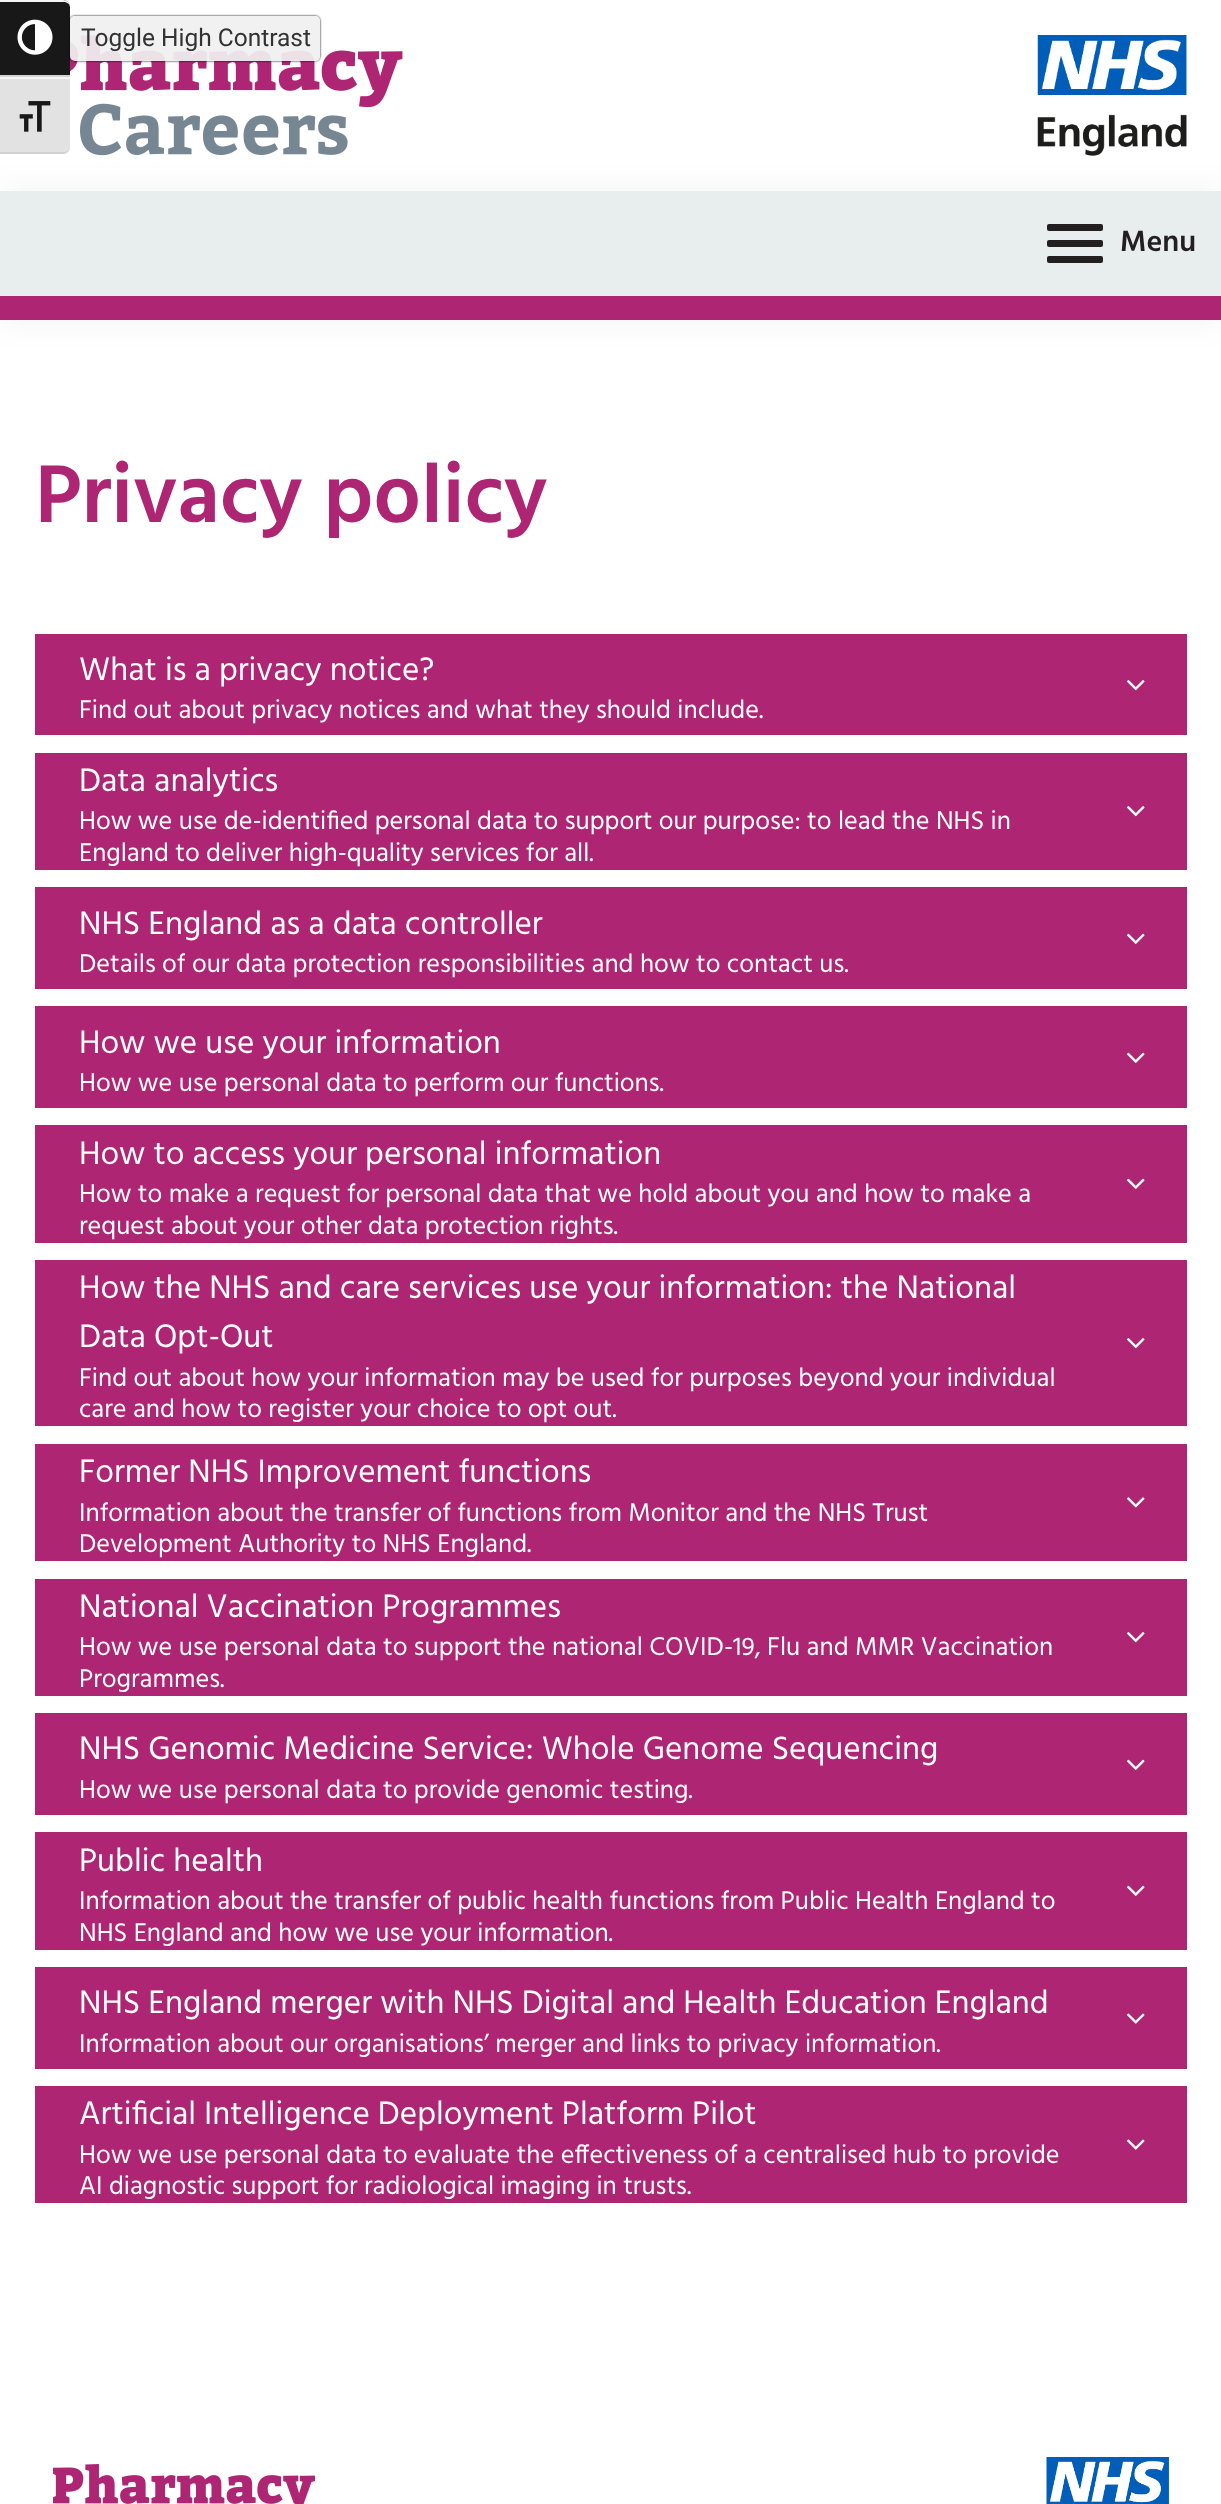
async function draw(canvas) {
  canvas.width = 1221
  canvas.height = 2504
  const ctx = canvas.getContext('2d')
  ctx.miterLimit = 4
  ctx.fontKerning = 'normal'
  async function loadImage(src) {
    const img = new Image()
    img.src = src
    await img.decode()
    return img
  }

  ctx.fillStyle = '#fff'
  ctx.fillRect(0, 0, 1221, 2504)
  ctx.fillStyle = '#181818'
  ctx.beginPath()
  ctx.roundRect(0, 0, 70, 77, [0, 7, 0, 0])
  ctx.fill()
  ctx.fillStyle = '#f5f5f5'
  ctx.beginPath()
  ctx.moveTo(0, 0)
  ctx.lineTo(0, 2)
  ctx.lineTo(63, 2)
  ctx.bezierCurveTo(67, 2, 70, 4, 70, 7)
  ctx.bezierCurveTo(70, 3, 67, 0, 63, 0)
  ctx.closePath()
  ctx.fill()
  ctx.fillStyle = '#d2d2d2'
  ctx.fillRect(0, 75, 70, 2)
  ctx.drawImage(await loadImage('image0.png'), 17, 19, 36, 36)
  ctx.drawImage(await loadImage('image6.png'), 70, 35, 333, 121)
  ctx.save()
  ctx.beginPath()
  ctx.moveTo(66, 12)
  ctx.lineTo(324, 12)
  ctx.lineTo(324, 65)
  ctx.lineTo(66, 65)
  ctx.closePath()
  ctx.moveTo(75, 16)
  ctx.lineTo(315, 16)
  ctx.bezierCurveTo(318, 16, 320, 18, 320, 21)
  ctx.lineTo(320, 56)
  ctx.bezierCurveTo(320, 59, 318, 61, 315, 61)
  ctx.lineTo(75, 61)
  ctx.bezierCurveTo(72, 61, 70, 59, 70, 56)
  ctx.lineTo(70, 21)
  ctx.bezierCurveTo(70, 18, 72, 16, 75, 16)
  ctx.closePath()
  ctx.clip('evenodd')
  ctx.fillStyle = '#000'
  ctx.filter = 'blur(1px)'
  ctx.beginPath()
  ctx.roundRect(70, 16, 250, 45, 5)
  ctx.fill()
  ctx.filter = 'none'
  ctx.restore()
  ctx.fillStyle = '#f0f0f0ed'
  ctx.beginPath()
  ctx.roundRect(70, 16, 250, 45, 5)
  ctx.fill()
  ctx.font = '24.5px Roboto'
  ctx.fillStyle = '#333'
  ctx.fillText('Toggle High Contrast', 81, 46)
  ctx.drawImage(await loadImage('image7.png'), 1037, 35, 150, 121)
  ctx.fillStyle = '#0000000d'
  ctx.filter = 'blur(17.5px)'
  ctx.beginPath()
  ctx.rect(0, 191, 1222, 129)
  ctx.fill()
  ctx.filter = 'none'
  ctx.fillStyle = '#e2e2e2'
  ctx.beginPath()
  ctx.roundRect(0, 77, 70, 77, [0, 0, 7, 0])
  ctx.fill()
  ctx.fillStyle = '#f5f5f5'
  ctx.fillRect(0, 77, 70, 2)
  ctx.fillStyle = '#d2d2d2'
  ctx.beginPath()
  ctx.moveTo(0, 152)
  ctx.lineTo(0, 154)
  ctx.lineTo(63, 154)
  ctx.bezierCurveTo(67, 154, 70, 151, 70, 147)
  ctx.bezierCurveTo(70, 150, 67, 152, 63, 152)
  ctx.closePath()
  ctx.fill()
  ctx.drawImage(await loadImage('image1.png'), 19, 101, 32, 31)
  ctx.font = '600 84px Hind'
  ctx.fillStyle = '#ae2573'
  ctx.fillText('Privacy policy', 35, 522)
  ctx.fillRect(35, 634, 1152, 101)
  ctx.font = '33.25px Hind'
  ctx.fillStyle = '#fff'
  ctx.fillText('What is a privacy notice?', 79, 680)
  ctx.font = '26.25px Hind'
  ctx.fillText('Find out about privacy notices and what they should include.', 79, 718)
  ctx.drawImage(await loadImage('image2.png'), 1127, 680, 18, 11)
  ctx.fillStyle = '#ae2573'
  ctx.fillRect(35, 753, 1152, 117)
  ctx.font = '33.25px Hind'
  ctx.fillStyle = '#fff'
  ctx.fillText('Data analytics', 79, 791)
  ctx.font = '26.25px Hind'
  ctx.fillText('How we use de-identified personal data to support our purpose: to lead the NHS in', 79, 829)
  ctx.fillText('England to deliver high-quality services for all.', 79, 861)
  ctx.drawImage(await loadImage('image2.png'), 1127, 806, 18, 11)
  ctx.fillStyle = '#ae2573'
  ctx.fillRect(35, 887, 1152, 102)
  ctx.font = '33.25px Hind'
  ctx.fillStyle = '#fff'
  ctx.fillText('NHS England as a data controller', 79, 934)
  ctx.font = '26.25px Hind'
  ctx.fillText('Details of our data protection responsibilities and how to contact us.', 79, 972)
  ctx.drawImage(await loadImage('image3.png'), 1127, 933, 18, 11)
  ctx.fillStyle = '#ae2573'
  ctx.fillRect(35, 1006, 1152, 102)
  ctx.font = '33.25px Hind'
  ctx.fillStyle = '#fff'
  ctx.fillText('How we use your information', 79, 1053)
  ctx.font = '26.25px Hind'
  ctx.fillText('How we use personal data to perform our functions.', 79, 1091)
  ctx.drawImage(await loadImage('image3.png'), 1127, 1052, 18, 11)
  ctx.fillStyle = '#ae2573'
  ctx.fillRect(35, 1125, 1152, 118)
  ctx.font = '33.25px Hind'
  ctx.fillStyle = '#fff'
  ctx.fillText('How to access your personal information', 79, 1164)
  ctx.font = '26.25px Hind'
  ctx.fillText('How to make a request for personal data that we hold about you and how to make a', 79, 1202)
  ctx.fillText('request about your other data protection rights.', 79, 1234)
  ctx.drawImage(await loadImage('image3.png'), 1127, 1178, 18, 11)
  ctx.fillStyle = '#ae2573'
  ctx.fillRect(35, 1260, 1152, 166)
  ctx.font = '33.25px Hind'
  ctx.fillStyle = '#fff'
  ctx.fillText('How the NHS and care services use your information: the National', 79, 1298)
  ctx.fillText('Data Opt-Out', 79, 1347)
  ctx.font = '26.25px Hind'
  ctx.fillText('Find out about how your information may be used for purposes beyond your individual', 79, 1386)
  ctx.fillText('care and how to register your choice to opt out.', 79, 1417)
  ctx.drawImage(await loadImage('image2.png'), 1127, 1338, 18, 11)
  ctx.fillStyle = '#ae2573'
  ctx.fillRect(35, 1444, 1152, 117)
  ctx.font = '33.25px Hind'
  ctx.fillStyle = '#fff'
  ctx.fillText('Former NHS Improvement functions', 79, 1482)
  ctx.font = '26.25px Hind'
  ctx.fillText('Information about the transfer of functions from Monitor and the NHS Trust', 79, 1521)
  ctx.fillText('Development Authority to NHS England.', 79, 1552)
  ctx.drawImage(await loadImage('image4.png'), 1127, 1497, 18, 11)
  ctx.fillStyle = '#ae2573'
  ctx.fillRect(35, 1579, 1152, 117)
  ctx.font = '33.25px Hind'
  ctx.fillStyle = '#fff'
  ctx.fillText('National Vaccination Programmes', 79, 1617)
  ctx.font = '26.25px Hind'
  ctx.fillText('How we use personal data to support the national COVID-19, Flu and MMR Vaccination', 79, 1655)
  ctx.fillText('Programmes.', 79, 1687)
  ctx.drawImage(await loadImage('image2.png'), 1127, 1632, 18, 11)
  ctx.fillStyle = '#ae2573'
  ctx.fillRect(35, 1713, 1152, 102)
  ctx.font = '33.25px Hind'
  ctx.fillStyle = '#fff'
  ctx.fillText('NHS Genomic Medicine Service: Whole Genome Sequencing', 79, 1759)
  ctx.font = '26.25px Hind'
  ctx.fillText('How we use personal data to provide genomic testing.', 79, 1798)
  ctx.drawImage(await loadImage('image3.png'), 1127, 1759, 18, 11)
  ctx.fillStyle = '#ae2573'
  ctx.fillRect(35, 1832, 1152, 118)
  ctx.font = '33.25px Hind'
  ctx.fillStyle = '#fff'
  ctx.fillText('Public health', 79, 1871)
  ctx.font = '26.25px Hind'
  ctx.fillText('Information about the transfer of public health functions from Public Health England to', 79, 1909)
  ctx.fillText('NHS England and how we use your information.', 79, 1941)
  ctx.drawImage(await loadImage('image3.png'), 1127, 1885, 18, 11)
  ctx.fillStyle = '#ae2573'
  ctx.fillRect(35, 1967, 1152, 102)
  ctx.font = '33.25px Hind'
  ctx.fillStyle = '#fff'
  ctx.fillText('NHS England merger with NHS Digital and Health Education England', 79, 2013)
  ctx.font = '26.25px Hind'
  ctx.fillText('Information about our organisations’ merger and links to privacy information.', 79, 2052)
  ctx.drawImage(await loadImage('image5.png'), 1127, 2013, 18, 11)
  ctx.fillStyle = '#ae2573'
  ctx.fillRect(35, 2086, 1152, 117)
  ctx.font = '33.25px Hind'
  ctx.fillStyle = '#fff'
  ctx.fillText('Artificial Intelligence Deployment Platform Pilot', 79, 2124)
  ctx.font = '26.25px Hind'
  ctx.fillText('How we use personal data to evaluate the effectiveness of a centralised hub to provide', 79, 2163)
  ctx.fillText('AI diagnostic support for radiological imaging in trusts.', 79, 2194)
  ctx.drawImage(await loadImage('image5.png'), 1127, 2139, 18, 11)
  ctx.fillStyle = '#e8edee'
  ctx.fillRect(0, 191, 1221, 105)
  ctx.fillStyle = '#ae2573'
  ctx.fillRect(0, 296, 1221, 24)
  ctx.fillStyle = '#231f20'
  ctx.beginPath()
  ctx.roundRect(1047, 224, 56, 7, 2)
  ctx.fill()
  ctx.beginPath()
  ctx.roundRect(1047, 240, 56, 7, 2)
  ctx.fill()
  ctx.beginPath()
  ctx.roundRect(1047, 256, 56, 7, 2)
  ctx.fill()
  ctx.font = '600 30px Hind'
  ctx.fillText('Menu', 1120, 251)
  ctx.drawImage(await loadImage('image8.png'), 53, 2464, 262, 40)
  ctx.drawImage(await loadImage('image9.png'), 1046, 2457, 123, 47)
}

draw(document.querySelector('canvas'))
